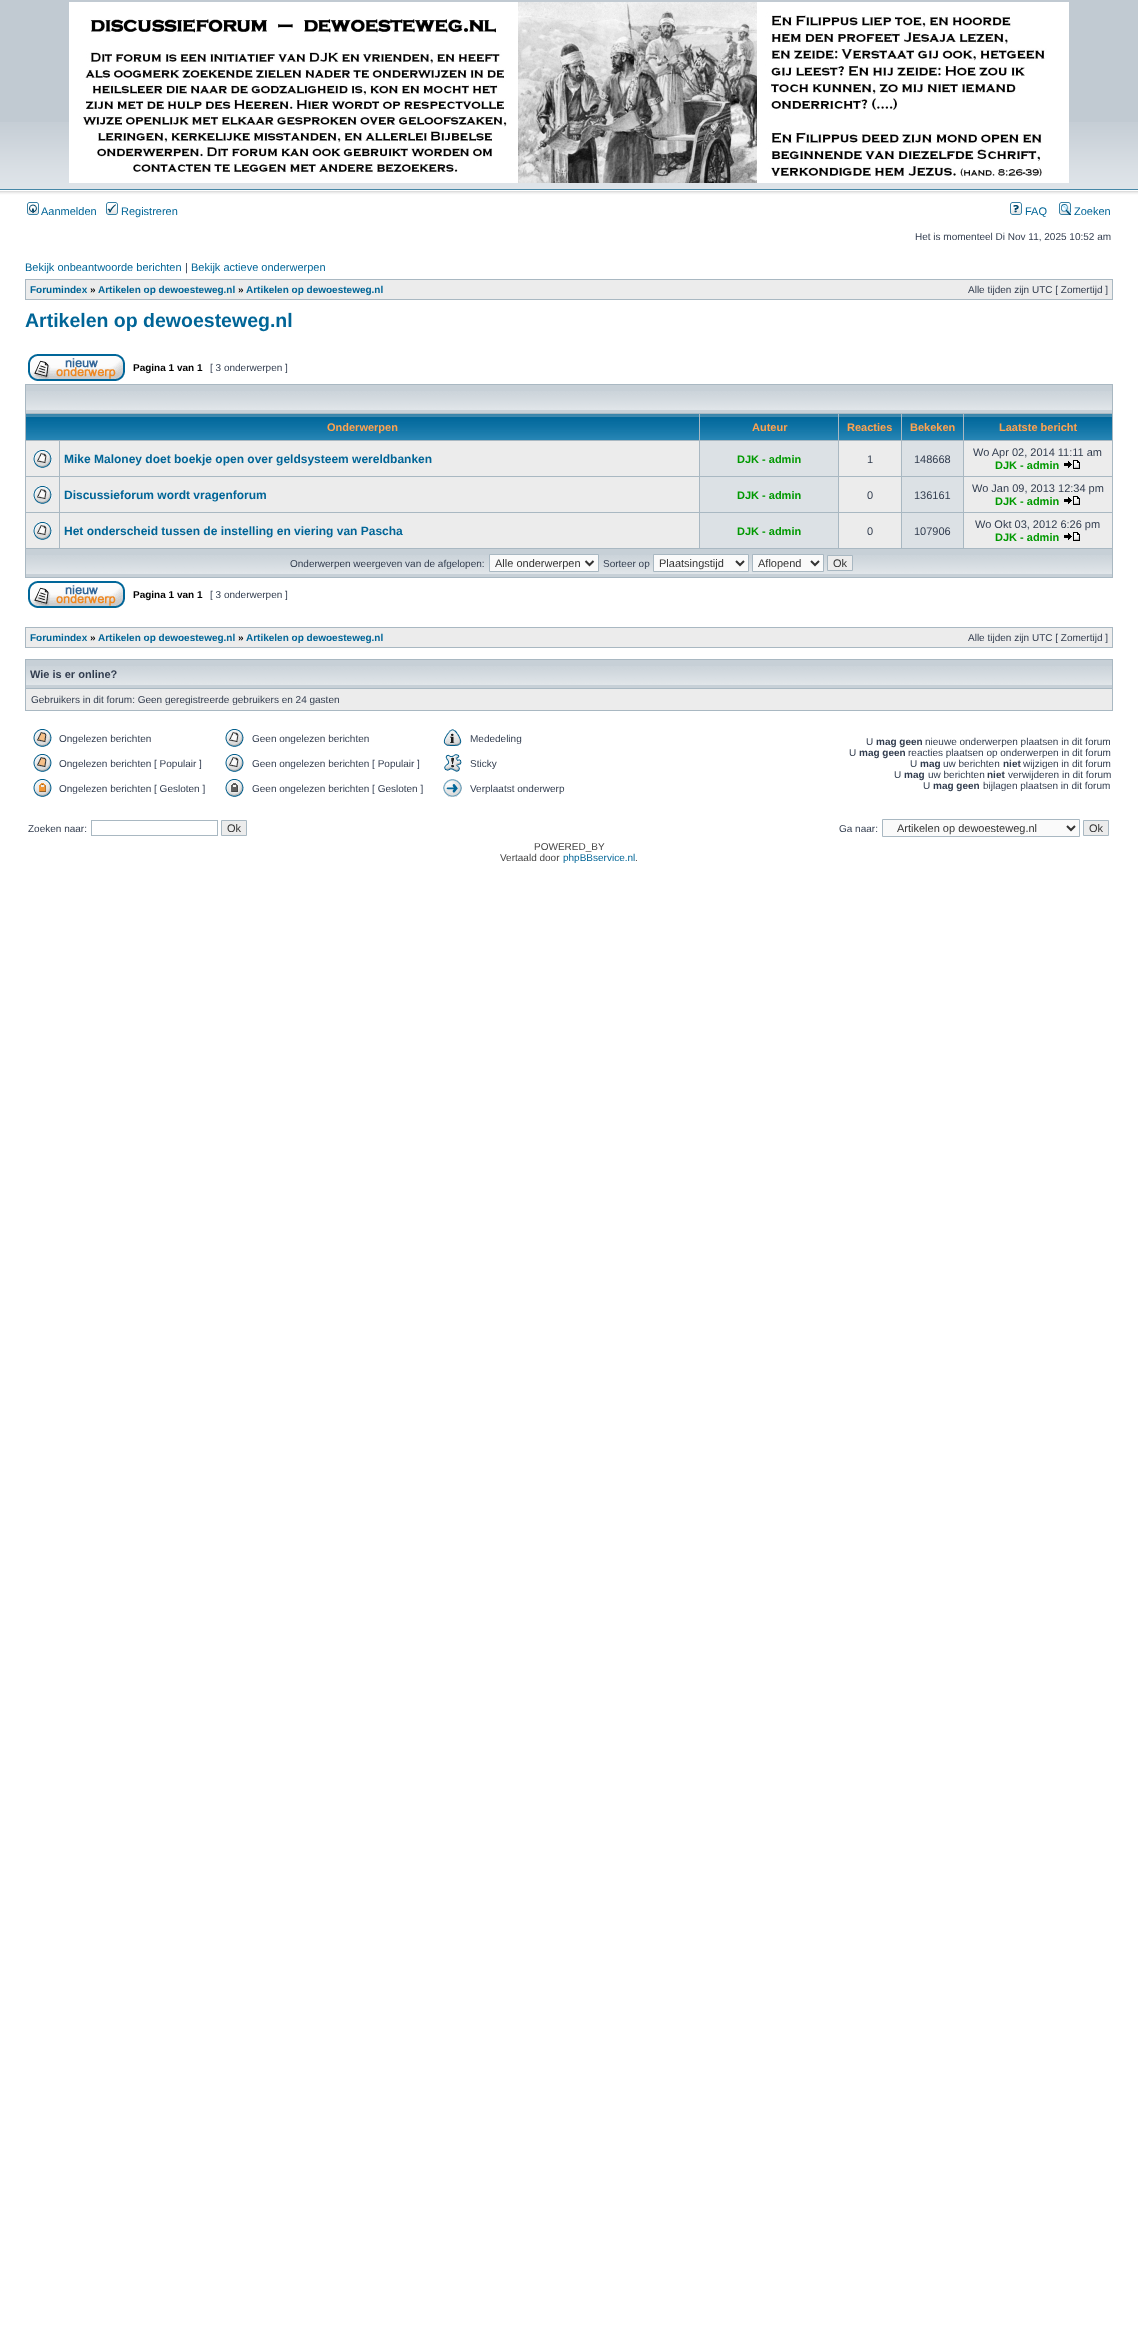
async function draw(canvas) {
  canvas.width = 1138
  canvas.height = 2332
  const ctx = canvas.getContext('2d')
  ctx.miterLimit = 4
  ctx.fontKerning = 'normal'
  async function loadImage(src) {
    const img = new Image()
    img.src = src
    await img.decode()
    return img
  }

  ctx.fillStyle = '#fff'
  ctx.fillRect(0, 0, 1138, 2332)
  ctx.fillStyle = '#c1cad2'
  ctx.fillRect(0, 0, 1138, 122)
  ctx.drawImage(await loadImage('image0.png'), 0, 122, 1138, 78)
  ctx.drawImage(await loadImage('image1.png'), 69, 2, 1000, 181)
  ctx.drawImage(await loadImage('image2.png'), 27, 202, 12, 13)
  ctx.font = '11px Liberation Sans'
  ctx.fillStyle = '#006597'
  ctx.fillText('Aanmelden', 41, 215)
  ctx.drawImage(await loadImage('image3.png'), 106, 202, 12, 13)
  ctx.fillText('Registreren', 121, 215)
  ctx.drawImage(await loadImage('image4.png'), 1010, 202, 12, 13)
  ctx.fillText('FAQ', 1025, 215)
  ctx.drawImage(await loadImage('image5.png'), 1059, 202, 12, 13)
  ctx.fillText('Zoeken', 1074, 215)
  ctx.font = '10px Liberation Sans'
  ctx.fillStyle = '#323d4f'
  ctx.fillText('Het is momenteel Di Nov 11, 2025 10:52 am', 915, 240)
  ctx.font = '11px Liberation Sans'
  ctx.fillStyle = '#006597'
  ctx.fillText('Bekijk onbeantwoorde berichten', 25, 271)
  ctx.fillStyle = '#323d4f'
  ctx.fillText('|', 185, 271)
  ctx.fillStyle = '#006597'
  ctx.fillText('Bekijk actieve onderwerpen', 191, 271)
  ctx.fillStyle = '#a9b8c2'
  ctx.fillRect(25, 279, 1088, 21)
  ctx.fillStyle = '#ececec'
  ctx.fillRect(26, 280, 1086, 19)
  ctx.font = 'bold 10px Liberation Sans'
  ctx.fillStyle = '#006597'
  ctx.fillText('Forumindex', 30, 293)
  ctx.fillStyle = '#000'
  ctx.fillText('»', 90, 293)
  ctx.fillStyle = '#006597'
  ctx.fillText('Artikelen op dewoesteweg.nl', 98, 293)
  ctx.fillStyle = '#000'
  ctx.fillText('»', 238, 293)
  ctx.fillStyle = '#006597'
  ctx.fillText('Artikelen op dewoesteweg.nl', 246, 293)
  ctx.font = '10px Liberation Sans'
  ctx.fillStyle = '#323d4f'
  ctx.fillText('Alle tijden zijn UTC [ Zomertijd ]', 968, 293)
  ctx.font = 'bold 19.5px Liberation Sans'
  ctx.fillStyle = '#006597'
  ctx.fillText('Artikelen op dewoesteweg.nl', 25, 327)
  ctx.drawImage(await loadImage('image6.png'), 28, 354, 97, 27)
  ctx.font = 'bold 10px Liberation Sans'
  ctx.fillStyle = '#000'
  ctx.fillText('Pagina 1 van 1', 133, 371)
  ctx.font = '10px Liberation Sans'
  ctx.fillStyle = '#323d4f'
  ctx.fillText('[ 3 onderwerpen ]', 210, 371)
  ctx.fillStyle = '#a9b8c2'
  ctx.fillRect(25, 384, 1088, 194)
  ctx.fillStyle = '#c7d0d7'
  ctx.fillRect(26, 385, 1086, 28)
  ctx.drawImage(await loadImage('image7.png'), 26, 391, 1086, 19)
  ctx.drawImage(await loadImage('image8.png'), 26, 414, 673, 26)
  ctx.font = 'bold 11px Liberation Sans'
  ctx.fillStyle = '#ffa34f'
  ctx.fillText('Onderwerpen', 327, 431)
  ctx.drawImage(await loadImage('image9.png'), 700, 414, 138, 26)
  ctx.fillText('Auteur', 752, 431)
  ctx.drawImage(await loadImage('image10.png'), 839, 414, 62, 26)
  ctx.fillText('Reacties', 847, 431)
  ctx.drawImage(await loadImage('image11.png'), 902, 414, 61, 26)
  ctx.fillText('Bekeken', 910, 431)
  ctx.drawImage(await loadImage('image12.png'), 964, 414, 148, 26)
  ctx.fillText('Laatste bericht', 999, 431)
  ctx.fillStyle = '#ececec'
  ctx.fillRect(26, 441, 33, 35)
  ctx.drawImage(await loadImage('image13.png'), 33, 450, 19, 18)
  ctx.fillRect(60, 441, 639, 35)
  ctx.font = 'bold 12px Liberation Sans'
  ctx.fillStyle = '#006597'
  ctx.fillText('Mike Maloney doet boekje open over geldsysteem wereldbanken', 64, 463)
  ctx.fillStyle = '#dce1e5'
  ctx.fillRect(700, 441, 138, 35)
  ctx.font = 'bold 11px Liberation Sans'
  ctx.fillStyle = '#090'
  ctx.fillText('DJK - admin', 737, 463)
  ctx.fillStyle = '#ececec'
  ctx.fillRect(839, 441, 62, 35)
  ctx.font = '11px Liberation Sans'
  ctx.fillStyle = '#323d4f'
  ctx.fillText('1', 867, 463)
  ctx.fillStyle = '#dce1e5'
  ctx.fillRect(902, 441, 61, 35)
  ctx.fillStyle = '#323d4f'
  ctx.fillText('148668', 914, 463)
  ctx.fillStyle = '#ececec'
  ctx.fillRect(964, 441, 148, 35)
  ctx.fillStyle = '#323d4f'
  ctx.fillText('Wo Apr 02, 2014 11:11 am', 973, 456)
  ctx.font = 'bold 11px Liberation Sans'
  ctx.fillStyle = '#090'
  ctx.fillText('DJK - admin', 995, 469)
  ctx.drawImage(await loadImage('image14.png'), 1064, 460, 16, 9)
  ctx.fillStyle = '#ececec'
  ctx.fillRect(26, 477, 33, 35)
  ctx.drawImage(await loadImage('image13.png'), 33, 486, 19, 18)
  ctx.fillRect(60, 477, 639, 35)
  ctx.font = 'bold 12px Liberation Sans'
  ctx.fillStyle = '#006597'
  ctx.fillText('Discussieforum wordt vragenforum', 64, 499)
  ctx.fillStyle = '#dce1e5'
  ctx.fillRect(700, 477, 138, 35)
  ctx.font = 'bold 11px Liberation Sans'
  ctx.fillStyle = '#090'
  ctx.fillText('DJK - admin', 737, 499)
  ctx.fillStyle = '#ececec'
  ctx.fillRect(839, 477, 62, 35)
  ctx.font = '11px Liberation Sans'
  ctx.fillStyle = '#323d4f'
  ctx.fillText('0', 867, 499)
  ctx.fillStyle = '#dce1e5'
  ctx.fillRect(902, 477, 61, 35)
  ctx.fillStyle = '#323d4f'
  ctx.fillText('136161', 914, 499)
  ctx.fillStyle = '#ececec'
  ctx.fillRect(964, 477, 148, 35)
  ctx.fillStyle = '#323d4f'
  ctx.fillText('Wo Jan 09, 2013 12:34 pm', 972, 492)
  ctx.font = 'bold 11px Liberation Sans'
  ctx.fillStyle = '#090'
  ctx.fillText('DJK - admin', 995, 505)
  ctx.drawImage(await loadImage('image14.png'), 1064, 496, 16, 9)
  ctx.fillStyle = '#ececec'
  ctx.fillRect(26, 513, 33, 35)
  ctx.drawImage(await loadImage('image13.png'), 33, 522, 19, 18)
  ctx.fillRect(60, 513, 639, 35)
  ctx.font = 'bold 12px Liberation Sans'
  ctx.fillStyle = '#006597'
  ctx.fillText('Het onderscheid tussen de instelling en viering van Pascha', 64, 535)
  ctx.fillStyle = '#dce1e5'
  ctx.fillRect(700, 513, 138, 35)
  ctx.font = 'bold 11px Liberation Sans'
  ctx.fillStyle = '#090'
  ctx.fillText('DJK - admin', 737, 535)
  ctx.fillStyle = '#ececec'
  ctx.fillRect(839, 513, 62, 35)
  ctx.font = '11px Liberation Sans'
  ctx.fillStyle = '#323d4f'
  ctx.fillText('0', 867, 535)
  ctx.fillStyle = '#dce1e5'
  ctx.fillRect(902, 513, 61, 35)
  ctx.fillStyle = '#323d4f'
  ctx.fillText('107906', 914, 535)
  ctx.fillStyle = '#ececec'
  ctx.fillRect(964, 513, 148, 35)
  ctx.fillStyle = '#323d4f'
  ctx.fillText('Wo Okt 03, 2012 6:26 pm', 975, 528)
  ctx.font = 'bold 11px Liberation Sans'
  ctx.fillStyle = '#090'
  ctx.fillText('DJK - admin', 995, 541)
  ctx.drawImage(await loadImage('image14.png'), 1064, 532, 16, 9)
  ctx.fillStyle = '#c7d0d7'
  ctx.fillRect(26, 549, 1086, 28)
  ctx.drawImage(await loadImage('image7.png'), 26, 555, 1086, 19)
  ctx.font = '10px Liberation Sans'
  ctx.fillStyle = '#323d4f'
  ctx.fillText('Onderwerpen weergeven van de afgelopen:', 290, 567)
  ctx.fillStyle = '#fafafa'
  ctx.beginPath()
  ctx.rect(489.5, 554.5, 109, 17)
  ctx.fill()
  ctx.strokeStyle = '#a9b8c2'
  ctx.stroke()
  ctx.beginPath()
  ctx.moveTo(585.5, 561)
  ctx.lineTo(589.5, 565)
  ctx.lineTo(593.5, 561)
  ctx.strokeStyle = '#333'
  ctx.lineWidth = 2
  ctx.stroke()
  ctx.font = '11px Liberation Sans'
  ctx.fillStyle = '#333'
  ctx.fillText('Alle onderwerpen', 495, 567)
  ctx.font = '10px Liberation Sans'
  ctx.fillStyle = '#323d4f'
  ctx.fillText('Sorteer op', 603, 567)
  ctx.fillStyle = '#fafafa'
  ctx.beginPath()
  ctx.rect(653.5, 554.5, 95, 17)
  ctx.fill()
  ctx.strokeStyle = '#a9b8c2'
  ctx.lineWidth = 1
  ctx.stroke()
  ctx.beginPath()
  ctx.moveTo(736, 561)
  ctx.lineTo(740, 565)
  ctx.lineTo(744, 561)
  ctx.strokeStyle = '#333'
  ctx.lineWidth = 2
  ctx.stroke()
  ctx.font = '11px Liberation Sans'
  ctx.fillStyle = '#333'
  ctx.fillText('Plaatsingstijd', 659, 567)
  ctx.fillStyle = '#fafafa'
  ctx.beginPath()
  ctx.rect(752.5, 554.5, 71, 17)
  ctx.fill()
  ctx.strokeStyle = '#a9b8c2'
  ctx.lineWidth = 1
  ctx.stroke()
  ctx.beginPath()
  ctx.moveTo(811, 561)
  ctx.lineTo(815, 565)
  ctx.lineTo(819, 561)
  ctx.strokeStyle = '#333'
  ctx.lineWidth = 2
  ctx.stroke()
  ctx.fillStyle = '#333'
  ctx.fillText('Aflopend', 758, 567)
  ctx.fillStyle = '#ececec'
  ctx.beginPath()
  ctx.rect(827.5, 555.5, 25, 15)
  ctx.fill()
  ctx.strokeStyle = '#a9b8c2'
  ctx.lineWidth = 1
  ctx.stroke()
  ctx.fillStyle = '#333'
  ctx.fillText('Ok', 833, 567)
  ctx.drawImage(await loadImage('image6.png'), 28, 581, 97, 27)
  ctx.font = 'bold 10px Liberation Sans'
  ctx.fillStyle = '#000'
  ctx.fillText('Pagina 1 van 1', 133, 598)
  ctx.font = '10px Liberation Sans'
  ctx.fillStyle = '#323d4f'
  ctx.fillText('[ 3 onderwerpen ]', 210, 598)
  ctx.fillStyle = '#a9b8c2'
  ctx.fillRect(25, 627, 1088, 21)
  ctx.fillStyle = '#ececec'
  ctx.fillRect(26, 628, 1086, 19)
  ctx.font = 'bold 10px Liberation Sans'
  ctx.fillStyle = '#006597'
  ctx.fillText('Forumindex', 30, 641)
  ctx.fillStyle = '#000'
  ctx.fillText('»', 90, 641)
  ctx.fillStyle = '#006597'
  ctx.fillText('Artikelen op dewoesteweg.nl', 98, 641)
  ctx.fillStyle = '#000'
  ctx.fillText('»', 238, 641)
  ctx.fillStyle = '#006597'
  ctx.fillText('Artikelen op dewoesteweg.nl', 246, 641)
  ctx.font = '10px Liberation Sans'
  ctx.fillStyle = '#323d4f'
  ctx.fillText('Alle tijden zijn UTC [ Zomertijd ]', 968, 641)
  ctx.fillStyle = '#a9b8c2'
  ctx.fillRect(25, 659, 1088, 52)
  ctx.fillStyle = '#c7d0d7'
  ctx.fillRect(26, 660, 1086, 28)
  ctx.drawImage(await loadImage('image7.png'), 26, 666, 1086, 19)
  ctx.font = 'bold 11px Liberation Sans'
  ctx.fillStyle = '#323d4f'
  ctx.fillText('Wie is er online?', 30, 678)
  ctx.fillStyle = '#ececec'
  ctx.fillRect(26, 689, 1086, 21)
  ctx.font = '10px Liberation Sans'
  ctx.fillStyle = '#323d4f'
  ctx.fillText('Gebruikers in dit forum: Geen geregistreerde gebruikers en 24 gasten', 31, 703)
  ctx.drawImage(await loadImage('image15.png'), 33, 729, 19, 18)
  ctx.fillText('Ongelezen berichten', 59, 742)
  ctx.drawImage(await loadImage('image16.png'), 225, 729, 19, 18)
  ctx.fillText('Geen ongelezen berichten', 252, 742)
  ctx.drawImage(await loadImage('image17.png'), 443, 729, 19, 17)
  ctx.fillText('Mededeling', 470, 742)
  ctx.drawImage(await loadImage('image18.png'), 33, 754, 19, 18)
  ctx.fillText('Ongelezen berichten [ Populair ]', 59, 767)
  ctx.drawImage(await loadImage('image19.png'), 225, 754, 19, 18)
  ctx.fillText('Geen ongelezen berichten [ Populair ]', 252, 767)
  ctx.drawImage(await loadImage('image20.png'), 444, 754, 18, 18)
  ctx.fillText('Sticky', 470, 767)
  ctx.drawImage(await loadImage('image21.png'), 33, 779, 19, 18)
  ctx.fillText('Ongelezen berichten [ Gesloten ]', 59, 792)
  ctx.drawImage(await loadImage('image22.png'), 225, 779, 19, 18)
  ctx.fillText('Geen ongelezen berichten [ Gesloten ]', 252, 792)
  ctx.drawImage(await loadImage('image23.png'), 443, 779, 19, 18)
  ctx.fillText('Verplaatst onderwerp', 470, 792)
  ctx.fillText('U', 866, 745)
  ctx.font = 'bold 10px Liberation Sans'
  ctx.fillText('mag geen', 876, 745)
  ctx.font = '10px Liberation Sans'
  ctx.fillText('nieuwe onderwerpen plaatsen in dit forum', 925, 745)
  ctx.fillText('U', 849, 756)
  ctx.font = 'bold 10px Liberation Sans'
  ctx.fillText('mag geen', 859, 756)
  ctx.font = '10px Liberation Sans'
  ctx.fillText('reacties plaatsen op onderwerpen in dit forum', 908, 756)
  ctx.fillText('U', 910, 767)
  ctx.font = 'bold 10px Liberation Sans'
  ctx.fillText('mag', 920, 767)
  ctx.font = '10px Liberation Sans'
  ctx.fillText('uw berichten', 943, 767)
  ctx.font = 'bold 10px Liberation Sans'
  ctx.fillText('niet', 1003, 767)
  ctx.font = '10px Liberation Sans'
  ctx.fillText('wijzigen in dit forum', 1023, 767)
  ctx.fillText('U', 894, 778)
  ctx.font = 'bold 10px Liberation Sans'
  ctx.fillText('mag', 904, 778)
  ctx.font = '10px Liberation Sans'
  ctx.fillText('uw berichten', 928, 778)
  ctx.font = 'bold 10px Liberation Sans'
  ctx.fillText('niet', 987, 778)
  ctx.font = '10px Liberation Sans'
  ctx.fillText('verwijderen in dit forum', 1008, 778)
  ctx.fillText('U', 923, 789)
  ctx.font = 'bold 10px Liberation Sans'
  ctx.fillText('mag geen', 933, 789)
  ctx.font = '10px Liberation Sans'
  ctx.fillText('bijlagen plaatsen in dit forum', 983, 789)
  ctx.fillText('Zoeken naar:', 28, 832)
  ctx.strokeRect(91.5, 820.5, 126, 15)
  ctx.fillStyle = '#ececec'
  ctx.beginPath()
  ctx.rect(221.5, 820.5, 25, 15)
  ctx.fill()
  ctx.stroke()
  ctx.font = '11px Liberation Sans'
  ctx.fillStyle = '#333'
  ctx.fillText('Ok', 227, 832)
  ctx.font = '10px Liberation Sans'
  ctx.fillStyle = '#323d4f'
  ctx.fillText('Ga naar:', 839, 832)
  ctx.fillStyle = '#fafafa'
  ctx.beginPath()
  ctx.rect(882.5, 819.5, 197, 17)
  ctx.fill()
  ctx.stroke()
  ctx.beginPath()
  ctx.moveTo(1067, 826)
  ctx.lineTo(1071, 830)
  ctx.lineTo(1075, 826)
  ctx.strokeStyle = '#333'
  ctx.lineWidth = 2
  ctx.stroke()
  ctx.font = '11px Liberation Sans'
  ctx.fillStyle = '#333'
  ctx.fillText('Artikelen op dewoesteweg.nl', 897, 832)
  ctx.fillStyle = '#ececec'
  ctx.beginPath()
  ctx.rect(1083.5, 820.5, 25, 15)
  ctx.fill()
  ctx.strokeStyle = '#a9b8c2'
  ctx.lineWidth = 1
  ctx.stroke()
  ctx.fillStyle = '#333'
  ctx.fillText('Ok', 1089, 832)
  ctx.font = '10px Liberation Sans'
  ctx.fillStyle = '#444'
  ctx.fillText('POWERED_BY', 534, 850)
  ctx.fillText('Vertaald door', 500, 861)
  ctx.fillStyle = '#006597'
  ctx.fillText('phpBBservice.nl', 563, 861)
  ctx.fillStyle = '#444'
  ctx.fillText('.', 635, 861)
}

draw(document.querySelector('canvas'))
